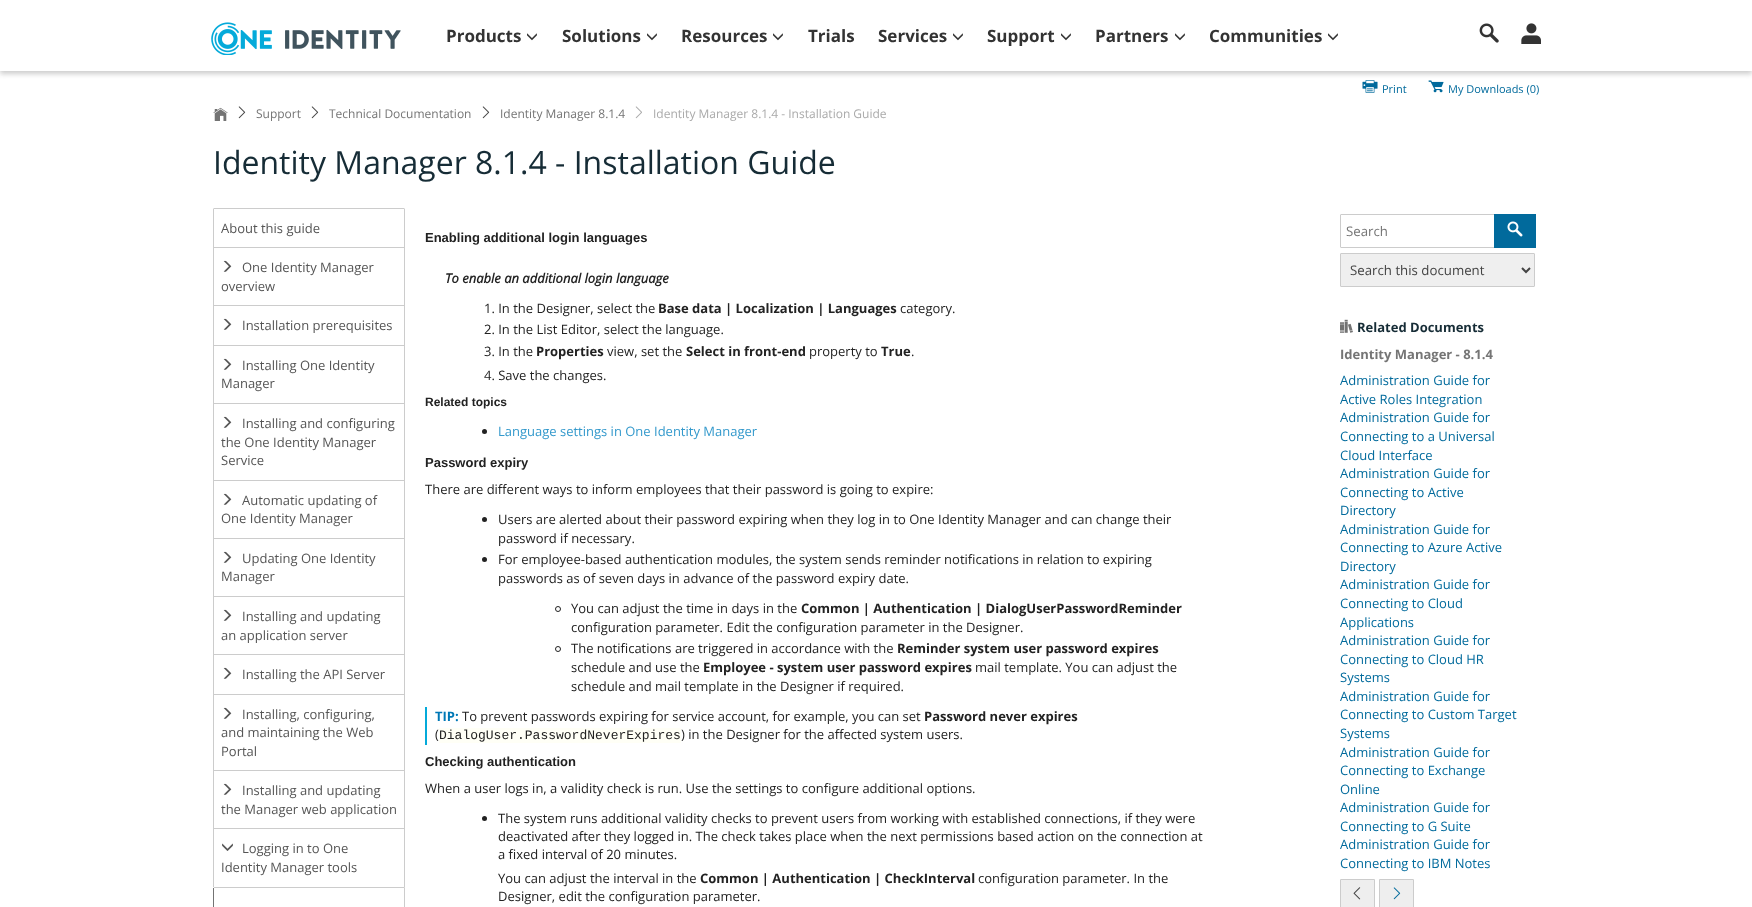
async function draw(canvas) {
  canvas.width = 1752
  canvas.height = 907
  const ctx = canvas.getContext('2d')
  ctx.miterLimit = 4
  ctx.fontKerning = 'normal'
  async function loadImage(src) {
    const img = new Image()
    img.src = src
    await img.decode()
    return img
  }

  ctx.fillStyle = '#fff'
  ctx.fillRect(0, 0, 1752, 907)
  ctx.drawImage(await loadImage('image4.png'), 1362, 80, 16, 13)
  ctx.drawImage(await loadImage('image5.png'), 1428, 80, 16, 13)
  ctx.save()
  ctx.beginPath()
  ctx.rect(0, 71, 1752, 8)
  ctx.clip()
  ctx.fillStyle = '#cdcdcd'
  ctx.filter = 'blur(2.5px)'
  ctx.beginPath()
  ctx.rect(0, 2, 1752, 72)
  ctx.fill()
  ctx.filter = 'none'
  ctx.restore()
  ctx.drawImage(await loadImage('image0.png'), 211, 22, 190, 33)
  ctx.font = 'bold 17px Open Sans'
  ctx.fillStyle = '#333'
  ctx.fillText('Products', 446, 42)
  ctx.drawImage(await loadImage('image1.png'), 527, 33, 10, 8)
  ctx.fillText('Solutions', 562, 42)
  ctx.drawImage(await loadImage('image1.png'), 647, 33, 10, 8)
  ctx.fillText('Resources', 681, 42)
  ctx.drawImage(await loadImage('image1.png'), 773, 33, 10, 8)
  ctx.fillText('Trials', 808, 42)
  ctx.fillText('Services', 878, 42)
  ctx.drawImage(await loadImage('image1.png'), 953, 33, 10, 8)
  ctx.fillText('Support', 987, 42)
  ctx.drawImage(await loadImage('image1.png'), 1061, 33, 10, 8)
  ctx.fillText('Partners', 1095, 42)
  ctx.drawImage(await loadImage('image1.png'), 1175, 33, 10, 8)
  ctx.fillText('Communities', 1209, 42)
  ctx.drawImage(await loadImage('image1.png'), 1328, 33, 10, 8)
  ctx.drawImage(await loadImage('image2.png'), 1479, 23, 20, 20)
  ctx.drawImage(await loadImage('image3.png'), 1521, 23, 20, 21)
  ctx.font = '11px Open Sans'
  ctx.fillStyle = '#016a9c'
  ctx.fillText('Print', 1382, 93)
  ctx.fillText('My Downloads (0)', 1448, 93)
  ctx.drawImage(await loadImage('image6.png'), 213, 107, 15, 14)
  ctx.drawImage(await loadImage('image7.png'), 238, 106, 8, 13)
  ctx.font = '12px Open Sans'
  ctx.fillStyle = '#757575'
  ctx.fillText('Support', 256, 118)
  ctx.drawImage(await loadImage('image7.png'), 311, 106, 8, 13)
  ctx.fillText('Technical Documentation', 329, 118)
  ctx.drawImage(await loadImage('image7.png'), 482, 106, 8, 13)
  ctx.fillText('Identity Manager 8.1.4', 500, 118)
  ctx.drawImage(await loadImage('image8.png'), 635, 106, 7, 13)
  ctx.fillStyle = '#aaa'
  ctx.fillText('Identity Manager 8.1.4 - Installation Guide', 653, 118)
  ctx.font = '32px Open Sans'
  ctx.fillStyle = '#162c36'
  ctx.fillText('Identity Manager 8.1.4 - Installation Guide', 213, 174)
  ctx.beginPath()
  ctx.roundRect(213.5, 208.5, 191, 39, [0.5, 0.5, 0, 0])
  ctx.strokeStyle = '#ccc'
  ctx.stroke()
  ctx.font = '13px Open Sans'
  ctx.fillStyle = '#555'
  ctx.fillText('About this guide', 221, 233)
  ctx.strokeRect(213.5, 247.5, 191, 58)
  ctx.drawImage(await loadImage('image9.png'), 223, 260, 9, 12)
  ctx.fillText('One Identity Manager', 242, 272)
  ctx.fillText('overview', 221, 291)
  ctx.strokeRect(213.5, 305.5, 191, 40)
  ctx.drawImage(await loadImage('image9.png'), 223, 318, 9, 12)
  ctx.fillText('Installation prerequisites', 242, 330)
  ctx.strokeRect(213.5, 345.5, 191, 58)
  ctx.drawImage(await loadImage('image9.png'), 223, 358, 9, 12)
  ctx.fillText('Installing One Identity', 242, 370)
  ctx.fillText('Manager', 221, 388)
  ctx.strokeRect(213.5, 403.5, 191, 77)
  ctx.drawImage(await loadImage('image9.png'), 223, 416, 9, 12)
  ctx.fillText('Installing and configuring', 242, 428)
  ctx.fillText('the One Identity Manager', 221, 447)
  ctx.fillText('Service', 221, 465)
  ctx.strokeRect(213.5, 480.5, 191, 58)
  ctx.drawImage(await loadImage('image9.png'), 223, 493, 9, 12)
  ctx.fillText('Automatic updating of', 242, 505)
  ctx.fillText('One Identity Manager', 221, 523)
  ctx.strokeRect(213.5, 538.5, 191, 58)
  ctx.drawImage(await loadImage('image9.png'), 223, 551, 9, 12)
  ctx.fillText('Updating One Identity', 242, 563)
  ctx.fillText('Manager', 221, 581)
  ctx.strokeRect(213.5, 596.5, 191, 58)
  ctx.drawImage(await loadImage('image9.png'), 223, 609, 9, 12)
  ctx.fillText('Installing and updating', 242, 621)
  ctx.fillText('an application server', 221, 640)
  ctx.strokeRect(213.5, 654.5, 191, 40)
  ctx.drawImage(await loadImage('image9.png'), 223, 667, 9, 12)
  ctx.fillText('Installing the API Server', 242, 679)
  ctx.strokeRect(213.5, 694.5, 191, 76)
  ctx.drawImage(await loadImage('image9.png'), 223, 707, 9, 12)
  ctx.fillText('Installing, configuring,', 242, 719)
  ctx.fillText('and maintaining the Web', 221, 737)
  ctx.fillText('Portal', 221, 756)
  ctx.strokeRect(213.5, 770.5, 191, 58)
  ctx.drawImage(await loadImage('image9.png'), 223, 783, 9, 12)
  ctx.fillText('Installing and updating', 242, 795)
  ctx.fillText('the Manager web application', 221, 814)
  ctx.strokeRect(213.5, 828.5, 191, 59)
  ctx.drawImage(await loadImage('image10.png'), 222, 843, 11, 8)
  ctx.fillText('Logging in to One', 242, 853)
  ctx.fillText('Identity Manager tools', 221, 872)
  ctx.fillStyle = '#fff'
  ctx.beginPath()
  ctx.moveTo(214, 887)
  ctx.lineTo(404, 887)
  ctx.bezierCurveTo(404.5, 887, 405, 887.5, 405, 888)
  ctx.lineTo(405, 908)
  ctx.lineTo(213, 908)
  ctx.lineTo(213, 888)
  ctx.bezierCurveTo(213, 887.5, 213.5, 887, 214, 887)
  ctx.closePath()
  ctx.fill()
  ctx.fillStyle = '#ccc'
  ctx.beginPath()
  ctx.moveTo(214, 887)
  ctx.lineTo(214, 888)
  ctx.lineTo(404, 888)
  ctx.lineTo(405, 887)
  ctx.lineTo(404, 887)
  ctx.closePath()
  ctx.fill()
  ctx.beginPath()
  ctx.moveTo(405, 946)
  ctx.lineTo(405, 887)
  ctx.lineTo(404, 888)
  ctx.lineTo(404, 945)
  ctx.closePath()
  ctx.fill()
  ctx.fillStyle = '#737373'
  ctx.beginPath()
  ctx.moveTo(214, 888)
  ctx.lineTo(213, 888)
  ctx.lineTo(213, 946)
  ctx.lineTo(214, 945)
  ctx.closePath()
  ctx.fill()
  ctx.font = 'bold 13px Liberation Sans'
  ctx.fillStyle = '#222'
  ctx.fillText('Enabling additional login languages', 425, 242)
  ctx.font = 'italic bold 13px Open Sans'
  ctx.fillText('To enable an additional login language', 445, 283)
  ctx.font = '13px Open Sans'
  ctx.fillText('1. In the Designer, select the', 484, 313)
  ctx.font = 'bold 13px Open Sans'
  ctx.fillText('Base data | Localization | Languages', 658, 313)
  ctx.font = '13px Open Sans'
  ctx.fillText('category.', 900, 313)
  ctx.fillText('2. In the List Editor, select the language.', 484, 334)
  ctx.fillText('3. In the', 484, 356)
  ctx.font = 'bold 13px Open Sans'
  ctx.fillText('Properties', 536, 356)
  ctx.font = '13px Open Sans'
  ctx.fillText('view, set the', 607, 356)
  ctx.font = 'bold 13px Open Sans'
  ctx.fillText('Select in front-end', 686, 356)
  ctx.font = '13px Open Sans'
  ctx.fillText('property to', 809, 356)
  ctx.font = 'bold 13px Open Sans'
  ctx.fillText('True', 881, 356)
  ctx.font = '13px Open Sans'
  ctx.fillText('.', 911, 356)
  ctx.fillText('4. Save the changes.', 484, 380)
  ctx.font = 'bold 12px Liberation Sans'
  ctx.fillText('Related topics', 425, 406)
  ctx.beginPath()
  ctx.arc(484.5, 431.5, 2.5, 0, 2 * Math.PI)
  ctx.fill()
  ctx.font = '13px Open Sans'
  ctx.fillStyle = '#39c'
  ctx.fillText('Language settings in One Identity Manager', 498, 436)
  ctx.font = 'bold 13px Liberation Sans'
  ctx.fillStyle = '#222'
  ctx.fillText('Password expiry', 425, 467)
  ctx.font = '13px Open Sans'
  ctx.fillText('There are different ways to inform employees that their password is going to expire:', 425, 494)
  ctx.beginPath()
  ctx.arc(484.5, 519.5, 2.5, 0, 2 * Math.PI)
  ctx.fill()
  ctx.fillText('Users are alerted about their password expiring when they log in to One Identity Manager and can change their', 498, 524)
  ctx.fillText('password if necessary.', 498, 543)
  ctx.beginPath()
  ctx.arc(484.5, 559.5, 2.5, 0, 2 * Math.PI)
  ctx.fill()
  ctx.fillText('For employee-based authentication modules, the system sends reminder notifications in relation to expiring', 498, 564)
  ctx.fillText('passwords as of seven days in advance of the password expiry date.', 498, 583)
  ctx.beginPath()
  ctx.arc(558, 609, 2.5, 0, 2 * Math.PI)
  ctx.strokeStyle = '#222'
  ctx.stroke()
  ctx.fillText('You can adjust the time in days in the', 571, 613)
  ctx.font = 'bold 13px Open Sans'
  ctx.fillText('Common | Authentication | DialogUserPasswordReminder', 801, 613)
  ctx.font = '13px Open Sans'
  ctx.fillText('configuration parameter. Edit the configuration parameter in the Designer.', 571, 632)
  ctx.beginPath()
  ctx.arc(558, 649, 2.5, 0, 2 * Math.PI)
  ctx.stroke()
  ctx.fillText('The notifications are triggered in accordance with the', 571, 653)
  ctx.font = 'bold 13px Open Sans'
  ctx.fillText('Reminder system user password expires', 897, 653)
  ctx.font = '13px Open Sans'
  ctx.fillText('schedule and use the', 571, 672)
  ctx.font = 'bold 13px Open Sans'
  ctx.fillText('Employee - system user password expires', 703, 672)
  ctx.font = '13px Open Sans'
  ctx.fillText('mail template. You can adjust the', 975, 672)
  ctx.fillText('schedule and mail template in the Designer if required.', 571, 691)
  ctx.fillStyle = '#04aada'
  ctx.fillRect(425, 707, 2, 38)
  ctx.font = 'bold 13px Open Sans'
  ctx.fillStyle = '#0078b6'
  ctx.fillText('TIP:', 435, 721)
  ctx.font = '13px Open Sans'
  ctx.fillStyle = '#222'
  ctx.fillText('To prevent passwords expiring for service account, for example, you can set', 462, 721)
  ctx.font = 'bold 13px Open Sans'
  ctx.fillText('Password never expires', 924, 721)
  ctx.font = '13px Open Sans'
  ctx.fillText('(', 435, 739)
  ctx.fillStyle = '#fffff6'
  ctx.fillRect(439, 728, 242, 15)
  ctx.font = '13px Liberation Mono'
  ctx.fillStyle = '#222'
  ctx.fillText('DialogUser.PasswordNeverExpires', 439, 739)
  ctx.font = '13px Open Sans'
  ctx.fillText(') in the Designer for the affected system users.', 681, 739)
  ctx.font = 'bold 13px Liberation Sans'
  ctx.fillText('Checking authentication', 425, 766)
  ctx.font = '13px Open Sans'
  ctx.fillText('When a user logs in, a validity check is run. Use the settings to configure additional options.', 425, 793)
  ctx.beginPath()
  ctx.arc(484.5, 818.5, 2.5, 0, 2 * Math.PI)
  ctx.fill()
  ctx.fillText('The system runs additional validity checks to prevent users from working with established connections, if they were', 498, 823)
  ctx.fillText('deactivated after they logged in. The check takes place when the next permissions based action on the connection at', 498, 841)
  ctx.fillText('a fixed interval of 20 minutes.', 498, 859)
  ctx.fillText('You can adjust the interval in the', 498, 883)
  ctx.font = 'bold 13px Open Sans'
  ctx.fillText('Common | Authentication | CheckInterval', 700, 883)
  ctx.font = '13px Open Sans'
  ctx.fillText('configuration parameter. In the', 978, 883)
  ctx.fillText('Designer, edit the configuration parameter.', 498, 901)
  ctx.beginPath()
  ctx.roundRect(1340.5, 214.5, 154, 33, 0.5)
  ctx.strokeStyle = '#ccc'
  ctx.stroke()
  ctx.font = '13.25px Open Sans'
  ctx.fillStyle = '#757575'
  ctx.fillText('Search', 1346, 236)
  ctx.fillStyle = '#016a9c'
  ctx.fillRect(1494, 214, 42, 34)
  ctx.drawImage(await loadImage('image11.png'), 1507, 221, 16, 16)
  ctx.fillStyle = '#efefef'
  ctx.beginPath()
  ctx.roundRect(1340.5, 253.5, 194, 33, 0.5)
  ctx.fill()
  ctx.stroke()
  ctx.beginPath()
  ctx.moveTo(1522, 268)
  ctx.lineTo(1526, 272)
  ctx.lineTo(1530, 268)
  ctx.strokeStyle = '#444'
  ctx.lineWidth = 2
  ctx.stroke()
  ctx.fillStyle = '#444'
  ctx.fillText('Search this document', 1350, 275)
  ctx.drawImage(await loadImage('image12.png'), 1340, 319, 13, 14)
  ctx.font = 'bold 13px Open Sans'
  ctx.fillStyle = '#162c36'
  ctx.fillText('Related Documents', 1357, 332)
  ctx.fillStyle = '#757575'
  ctx.fillText('Identity Manager - 8.1.4', 1340, 359)
  ctx.font = '13px Open Sans'
  ctx.fillStyle = '#016a9c'
  ctx.fillText('Administration Guide for', 1340, 385)
  ctx.fillText('Active Roles Integration', 1340, 404)
  ctx.fillText('Administration Guide for', 1340, 422)
  ctx.fillText('Connecting to a Universal', 1340, 441)
  ctx.fillText('Cloud Interface', 1340, 460)
  ctx.fillText('Administration Guide for', 1340, 478)
  ctx.fillText('Connecting to Active', 1340, 497)
  ctx.fillText('Directory', 1340, 515)
  ctx.fillText('Administration Guide for', 1340, 534)
  ctx.fillText('Connecting to Azure Active', 1340, 552)
  ctx.fillText('Directory', 1340, 571)
  ctx.fillText('Administration Guide for', 1340, 589)
  ctx.fillText('Connecting to Cloud', 1340, 608)
  ctx.fillText('Applications', 1340, 627)
  ctx.fillText('Administration Guide for', 1340, 645)
  ctx.fillText('Connecting to Cloud HR', 1340, 664)
  ctx.fillText('Systems', 1340, 682)
  ctx.fillText('Administration Guide for', 1340, 701)
  ctx.fillText('Connecting to Custom Target', 1340, 719)
  ctx.fillText('Systems', 1340, 738)
  ctx.fillText('Administration Guide for', 1340, 757)
  ctx.fillText('Connecting to Exchange', 1340, 775)
  ctx.fillText('Online', 1340, 794)
  ctx.fillText('Administration Guide for', 1340, 812)
  ctx.fillText('Connecting to G Suite', 1340, 831)
  ctx.fillText('Administration Guide for', 1340, 849)
  ctx.fillText('Connecting to IBM Notes', 1340, 868)
  ctx.fillStyle = '#eee'
  ctx.beginPath()
  ctx.moveTo(1341, 879.5)
  ctx.lineTo(1374.5, 879.5)
  ctx.lineTo(1374.5, 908.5)
  ctx.lineTo(1341, 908.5)
  ctx.bezierCurveTo(1340.5, 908.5, 1340.5, 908.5, 1340.5, 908)
  ctx.lineTo(1340.5, 880)
  ctx.bezierCurveTo(1340.5, 879.5, 1340.5, 879.5, 1341, 879.5)
  ctx.closePath()
  ctx.fill()
  ctx.strokeStyle = '#ccc'
  ctx.lineWidth = 1
  ctx.stroke()
  ctx.drawImage(await loadImage('image13.png'), 1353, 887, 8, 13)
  ctx.beginPath()
  ctx.moveTo(1379.5, 879.5)
  ctx.lineTo(1413, 879.5)
  ctx.bezierCurveTo(1413.5, 879.5, 1413.5, 879.5, 1413.5, 880)
  ctx.lineTo(1413.5, 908)
  ctx.bezierCurveTo(1413.5, 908.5, 1413.5, 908.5, 1413, 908.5)
  ctx.lineTo(1379.5, 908.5)
  ctx.closePath()
  ctx.fill()
  ctx.stroke()
  ctx.drawImage(await loadImage('image14.png'), 1393, 887, 8, 13)
}

draw(document.querySelector('canvas'))
